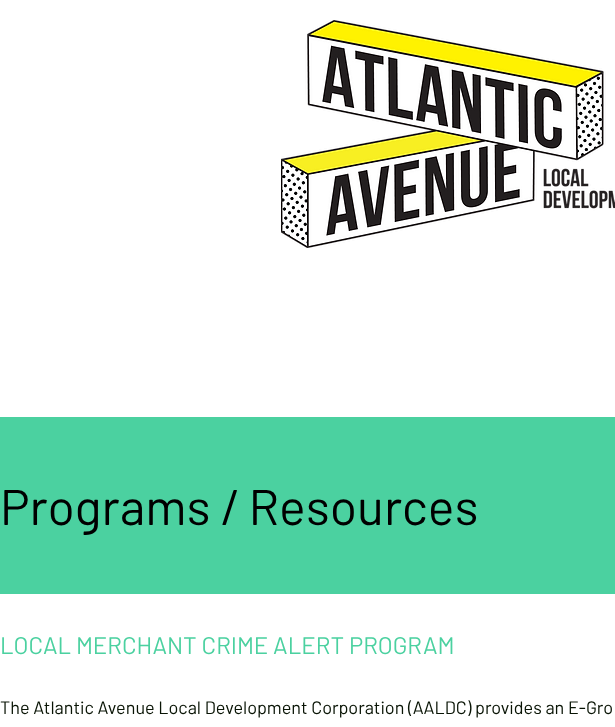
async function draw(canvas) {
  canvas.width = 615
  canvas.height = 727
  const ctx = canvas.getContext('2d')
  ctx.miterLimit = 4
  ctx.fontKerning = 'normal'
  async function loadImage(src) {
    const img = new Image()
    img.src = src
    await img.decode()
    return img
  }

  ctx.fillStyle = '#fff'
  ctx.fillRect(0, 0, 615, 727)
  ctx.drawImage(await loadImage('image0.png'), 281, 20, 334, 228)
  ctx.fillStyle = '#4bd1a0'
  ctx.fillRect(0, 417, 615, 177)
  ctx.font = '50px Barlow'
  ctx.fillStyle = '#000'
  ctx.fillText('Programs / Resources', 0, 525)
  ctx.font = '24px Barlow'
  ctx.fillStyle = '#4bd1a0'
  ctx.fillText('LOCAL MERCHANT CRIME ALERT PROGRAM', 0, 654)
  ctx.font = '18px Barlow'
  ctx.fillStyle = '#091405'
  ctx.fillText('The Atlantic Avenue Local Development Corporation (AALDC) provides an E-Gro', 0, 714)
}

draw(document.querySelector('canvas'))
